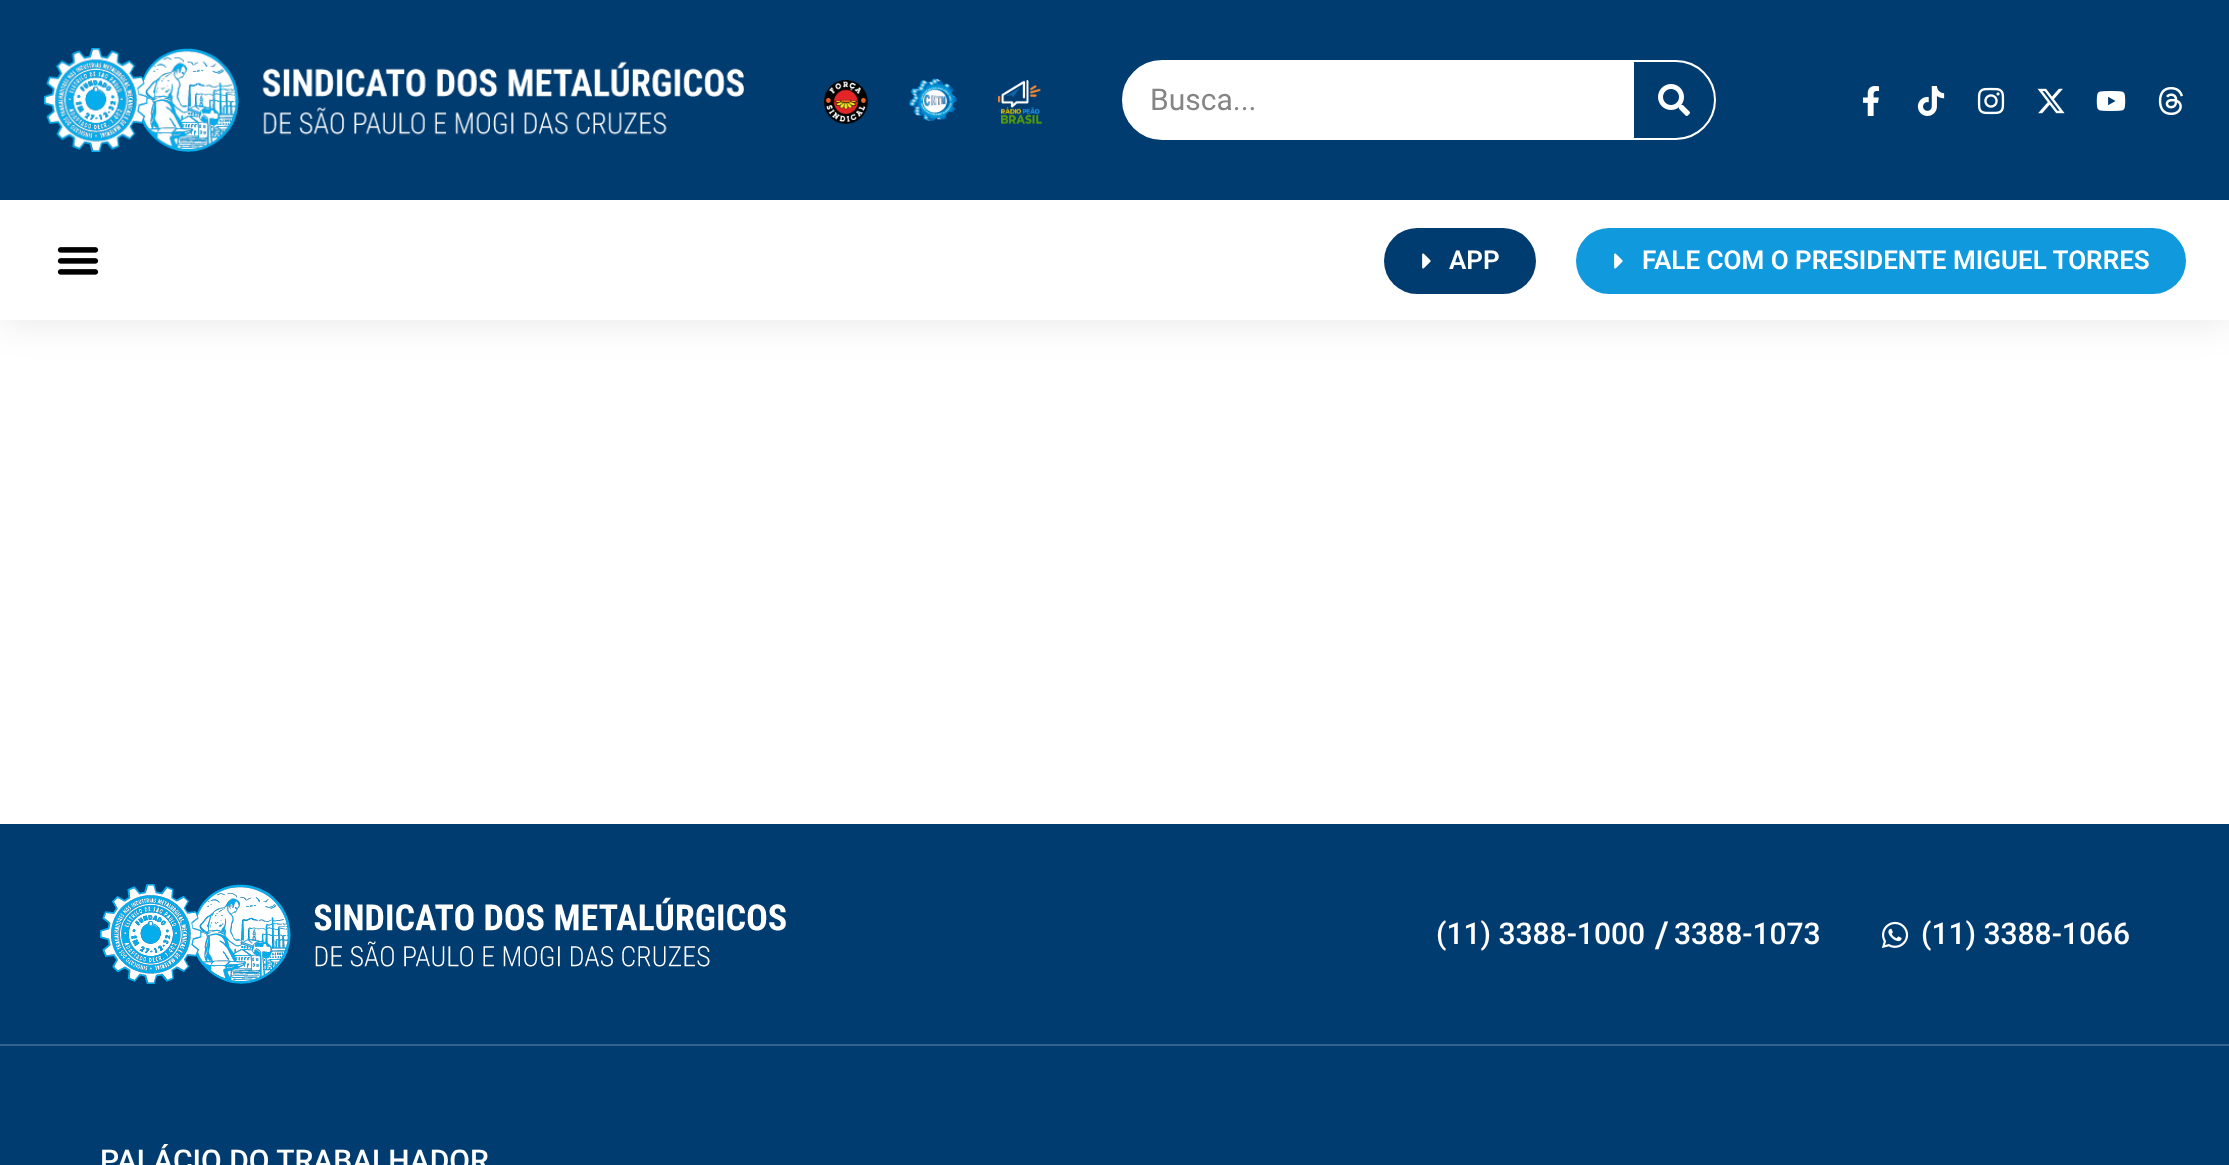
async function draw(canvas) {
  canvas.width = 2229
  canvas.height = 1165
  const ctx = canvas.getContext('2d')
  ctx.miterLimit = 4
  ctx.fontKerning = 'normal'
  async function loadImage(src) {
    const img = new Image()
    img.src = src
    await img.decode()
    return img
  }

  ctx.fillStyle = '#fff'
  ctx.fillRect(0, 0, 2229, 1165)
  ctx.fillStyle = '#0000001a'
  ctx.filter = 'blur(20px)'
  ctx.beginPath()
  ctx.rect(0, 0, 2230, 320)
  ctx.fill()
  ctx.filter = 'none'
  ctx.fillStyle = '#fff'
  ctx.fillRect(0, 200, 2229, 120)
  ctx.fillStyle = '#003c70'
  ctx.fillRect(0, 0, 2229, 200)
  ctx.drawImage(await loadImage('image0.png'), 44, 48, 700, 104)
  ctx.drawImage(await loadImage('image1.png'), 824, 80, 44, 44)
  ctx.drawImage(await loadImage('image2.png'), 908, 78, 50, 44)
  ctx.drawImage(await loadImage('image3.png'), 998, 80, 44, 44)
  ctx.fillStyle = '#fff'
  ctx.beginPath()
  ctx.roundRect(1123, 61, 592, 78, 39)
  ctx.fill()
  ctx.strokeStyle = '#fff'
  ctx.lineWidth = 2
  ctx.stroke()
  ctx.font = '30px Roboto'
  ctx.fillStyle = '#858585'
  ctx.fillText('Busca...', 1150, 110)
  ctx.fillStyle = '#003c70'
  ctx.beginPath()
  ctx.roundRect(1634, 62, 80, 76, [0, 38, 38, 0])
  ctx.fill()
  ctx.drawImage(await loadImage('image4.png'), 1658, 84, 32, 32)
  ctx.drawImage(await loadImage('image5.png'), 1862, 86, 18, 30)
  ctx.drawImage(await loadImage('image6.png'), 1917, 86, 28, 30)
  ctx.drawImage(await loadImage('image7.png'), 1977, 87, 28, 28)
  ctx.drawImage(await loadImage('image8.png'), 2037, 88, 28, 26)
  ctx.drawImage(await loadImage('image9.png'), 2096, 91, 30, 20)
  ctx.drawImage(await loadImage('image10.png'), 2158, 86, 25, 30)
  ctx.drawImage(await loadImage('image11.png'), 57, 247, 42, 28)
  ctx.beginPath()
  ctx.roundRect(1384, 228, 152, 66, 33)
  ctx.fill()
  ctx.drawImage(await loadImage('image12.png'), 1422, 253, 9, 16)
  ctx.font = '600 26px Roboto'
  ctx.fillStyle = '#fff'
  ctx.fillText('APP', 1449, 269)
  ctx.fillStyle = '#19d'
  ctx.beginPath()
  ctx.roundRect(1576, 228, 610, 66, 33)
  ctx.fill()
  ctx.drawImage(await loadImage('image13.png'), 1614, 253, 9, 16)
  ctx.fillStyle = '#fff'
  ctx.fillText('FALE COM O PRESIDENTE MIGUEL TORRES', 1642, 269)
  ctx.fillStyle = '#003c70'
  ctx.fillRect(0, 824, 2229, 341)
  ctx.fillStyle = '#33638d'
  ctx.fillRect(0, 1044, 2229, 2)
  ctx.drawImage(await loadImage('image14.png'), 100, 884, 686, 100)
  ctx.font = '500 30px Roboto'
  ctx.fillStyle = '#fff'
  ctx.fillText('(11) 3388-1000', 1436, 944)
  ctx.font = '600 36px Roboto'
  ctx.fillText('/', 1655, 947)
  ctx.font = '500 30px Roboto'
  ctx.fillText('3388-1073', 1674, 944)
  ctx.drawImage(await loadImage('image15.png'), 1882, 921, 27, 27)
  ctx.fillText('(11) 3388-1066', 1921, 944)
  ctx.fillText('PALÁCIO DO TRABALHADOR', 100, 1171)
}

draw(document.querySelector('canvas'))
